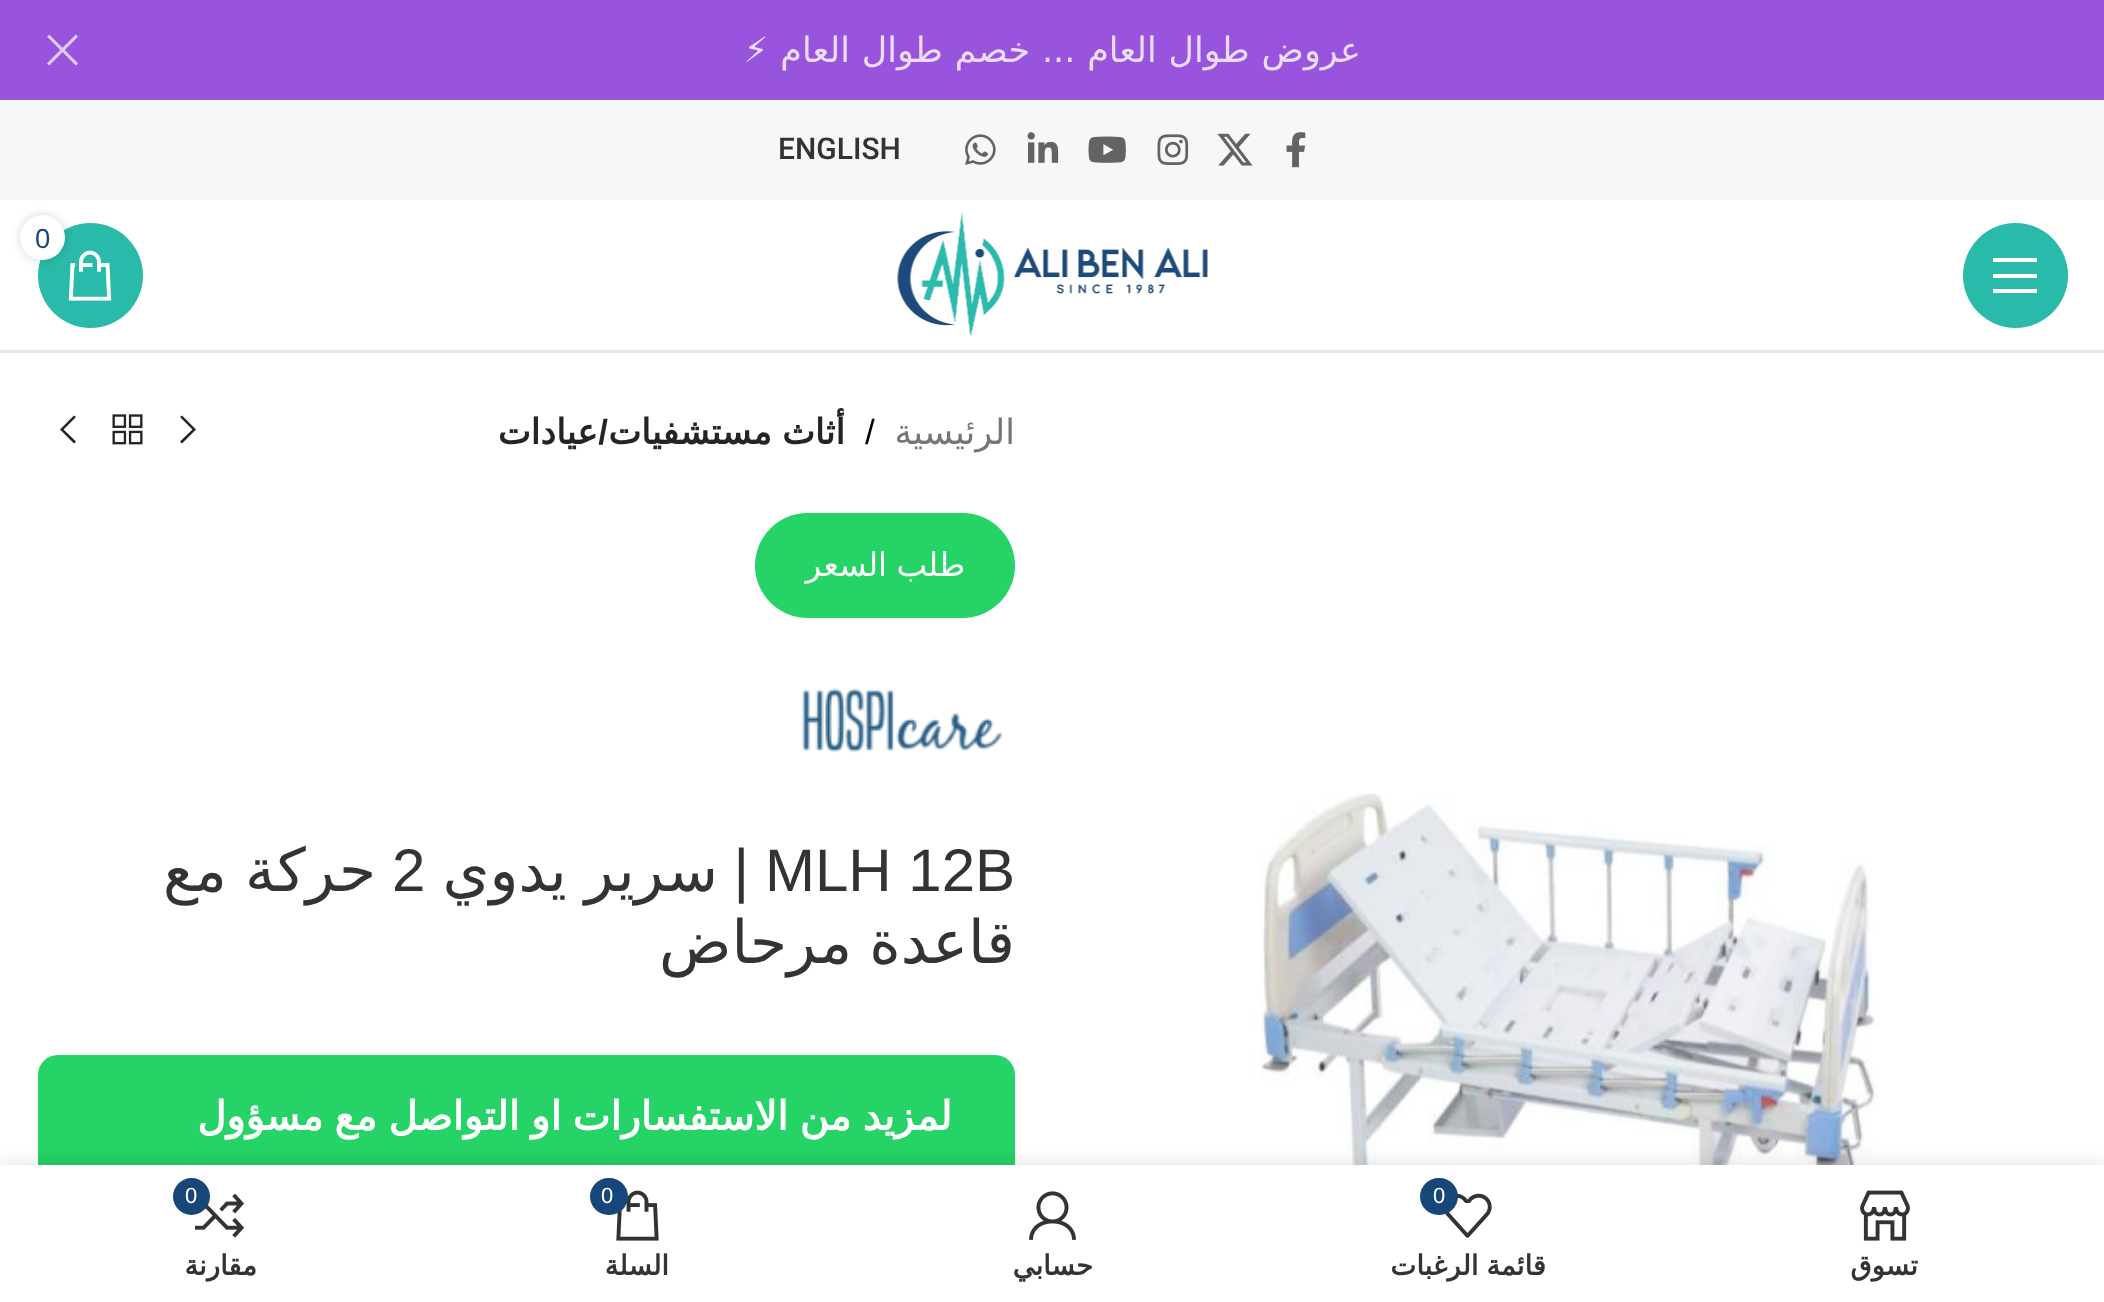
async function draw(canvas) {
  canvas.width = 2104
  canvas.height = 1302
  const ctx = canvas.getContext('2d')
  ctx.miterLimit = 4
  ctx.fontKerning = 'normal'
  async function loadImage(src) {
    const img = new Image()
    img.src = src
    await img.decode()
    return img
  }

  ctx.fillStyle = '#fff'
  ctx.fillRect(0, 0, 2104, 1302)
  ctx.fillStyle = '#9954dd'
  ctx.fillRect(0, 0, 2104, 100)
  ctx.wordSpacing = '0.75px'
  ctx.direction = 'rtl'
  ctx.font = '35px DejaVu Sans'
  ctx.fillStyle = '#ebddf8'
  ctx.fillText('عروض طوال العام ... خصم طوال العام ⚡', 1361, 62)
  ctx.drawImage(await loadImage('image0.png'), 47, 34, 31, 32)
  ctx.fillStyle = '#f7f7f7'
  ctx.fillRect(0, 100, 2104, 100)
  ctx.drawImage(await loadImage('image1.png'), 1286, 132, 20, 36)
  ctx.drawImage(await loadImage('image2.png'), 1217, 133, 36, 33)
  ctx.drawImage(await loadImage('image3.png'), 1157, 134, 32, 31)
  ctx.drawImage(await loadImage('image4.png'), 1088, 136, 38, 27)
  ctx.drawImage(await loadImage('image5.png'), 1027, 132, 32, 31)
  ctx.drawImage(await loadImage('image6.png'), 965, 134, 31, 31)
  ctx.wordSpacing = '0px'
  ctx.direction = 'ltr'
  ctx.font = '500 30px Roboto'
  ctx.fillStyle = '#333'
  ctx.fillText('ENGLISH', 778, 159)
  ctx.fillStyle = '#e6e6e6'
  ctx.fillRect(0, 350, 2104, 3)
  ctx.fillStyle = '#2abaaa'
  ctx.beginPath()
  ctx.arc(2015.5, 275.5, 52.5, 0, 2 * Math.PI)
  ctx.fill()
  ctx.fillStyle = '#fff'
  ctx.beginPath()
  ctx.moveTo(1993, 262)
  ctx.lineTo(2037, 262)
  ctx.lineTo(2037, 258)
  ctx.lineTo(1993, 258)
  ctx.closePath()
  ctx.moveTo(1993, 278)
  ctx.lineTo(2037, 278)
  ctx.lineTo(2037, 274)
  ctx.lineTo(1993, 274)
  ctx.closePath()
  ctx.moveTo(1993, 293)
  ctx.lineTo(2037, 293)
  ctx.lineTo(2037, 289)
  ctx.lineTo(1993, 289)
  ctx.closePath()
  ctx.fill()
  ctx.drawImage(await loadImage('image7.png'), 897, 213, 311, 123)
  ctx.fillStyle = '#2abaaa'
  ctx.beginPath()
  ctx.arc(90.5, 275.5, 52.5, 0, 2 * Math.PI)
  ctx.fill()
  ctx.drawImage(await loadImage('image8.png'), 68, 250, 44, 51)
  ctx.fillStyle = '#0000002b'
  ctx.filter = 'blur(5px)'
  ctx.beginPath()
  ctx.roundRect(20, 215, 45, 45, 22.5)
  ctx.fill()
  ctx.filter = 'none'
  ctx.fillStyle = '#fff'
  ctx.beginPath()
  ctx.arc(42.5, 237.5, 22.5, 0, 2 * Math.PI)
  ctx.fill()
  ctx.font = '27.5px Liberation Sans'
  ctx.fillStyle = '#164778'
  ctx.fillText('0', 35, 248)
  ctx.drawImage(await loadImage('image9.png'), 1252, 793, 628, 372)
  ctx.direction = 'rtl'
  ctx.font = '35px DejaVu Sans'
  ctx.fillStyle = '#767676'
  ctx.fillText('الرئيسية', 1015, 444)
  ctx.direction = 'ltr'
  ctx.font = '35px Liberation Sans'
  ctx.fillStyle = '#000'
  ctx.fillText('/', 865, 444)
  ctx.wordSpacing = '-1px'
  ctx.direction = 'rtl'
  ctx.font = 'bold 35px DejaVu Sans'
  ctx.fillStyle = '#242424'
  ctx.fillText('أثاث مستشفيات', 845, 444)
  ctx.wordSpacing = '0px'
  ctx.font = 'bold 35px Liberation Sans'
  ctx.fillText('/', 608, 444)
  ctx.font = 'bold 35px DejaVu Sans'
  ctx.fillText('عيادات', 598, 444)
  ctx.beginPath()
  ctx.moveTo(180, 417)
  ctx.lineTo(192.5, 429.5)
  ctx.lineTo(180, 441.5)
  ctx.lineTo(182, 443.5)
  ctx.lineTo(196, 429.5)
  ctx.lineTo(182, 415.5)
  ctx.closePath()
  ctx.fill()
  ctx.drawImage(await loadImage('image10.png'), 112, 414, 31, 31)
  ctx.beginPath()
  ctx.moveTo(76, 417)
  ctx.lineTo(74, 415.5)
  ctx.lineTo(60, 429.5)
  ctx.lineTo(74, 443.5)
  ctx.lineTo(76, 441.5)
  ctx.lineTo(63.5, 429.5)
  ctx.closePath()
  ctx.fill()
  ctx.fillStyle = '#25d366'
  ctx.beginPath()
  ctx.roundRect(755, 513, 260, 105, 52.5)
  ctx.fill()
  ctx.wordSpacing = '-1px'
  ctx.font = '32.5px DejaVu Sans'
  ctx.fillStyle = '#fff'
  ctx.fillText('طلب السعر', 965, 576)
  ctx.drawImage(await loadImage('image11.png'), 801, 688, 202, 65)
  ctx.wordSpacing = '0px'
  ctx.direction = 'ltr'
  ctx.font = '60px Liberation Sans'
  ctx.fillStyle = '#333'
  ctx.fillText('MLH 12B', 765, 891)
  ctx.direction = 'rtl'
  ctx.fillText('|', 749, 891)
  ctx.wordSpacing = '-1px'
  ctx.font = '60px DejaVu Sans'
  ctx.fillText('سرير يدوي', 718, 891)
  ctx.wordSpacing = '0px'
  ctx.direction = 'ltr'
  ctx.font = '60px Liberation Sans'
  ctx.fillText('2', 392, 891)
  ctx.wordSpacing = '-1px'
  ctx.direction = 'rtl'
  ctx.font = '60px DejaVu Sans'
  ctx.fillText('حركة مع', 376, 891)
  ctx.wordSpacing = '-2px'
  ctx.fillText('قاعدة مرحاض', 1015, 963)
  ctx.fillStyle = '#25d366'
  ctx.beginPath()
  ctx.roundRect(38, 1055, 977, 188, 20)
  ctx.fill()
  ctx.wordSpacing = '-1.5px'
  ctx.font = 'bold 40px DejaVu Sans'
  ctx.fillStyle = '#fff'
  ctx.fillText('لمزيد من الاستفسارات او التواصل مع مسؤول', 952, 1130)
  ctx.fillStyle = '#0000001f'
  ctx.filter = 'blur(11px)'
  ctx.beginPath()
  ctx.rect(0, 1165, 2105, 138)
  ctx.fill()
  ctx.filter = 'none'
  ctx.fillStyle = '#fff'
  ctx.fillRect(0, 1165, 2104, 137)
  ctx.drawImage(await loadImage('image12.png'), 1860, 1190, 50, 51)
  ctx.wordSpacing = '0px'
  ctx.font = 'bold 27.5px DejaVu Sans'
  ctx.fillStyle = '#333'
  ctx.fillText('تسوق', 1918, 1275)
  ctx.drawImage(await loadImage('image13.png'), 1445, 1193, 47, 45)
  ctx.fillStyle = '#164778'
  ctx.beginPath()
  ctx.roundRect(1420, 1178, 38, 37, 18.5)
  ctx.fill()
  ctx.direction = 'ltr'
  ctx.font = '22px Liberation Sans'
  ctx.fillStyle = '#fff'
  ctx.fillText('0', 1433, 1203)
  ctx.wordSpacing = '-1px'
  ctx.direction = 'rtl'
  ctx.font = 'bold 27.5px DejaVu Sans'
  ctx.fillStyle = '#333'
  ctx.fillText('قائمة الرغبات', 1546, 1275)
  ctx.drawImage(await loadImage('image14.png'), 1029, 1191, 47, 49)
  ctx.wordSpacing = '0px'
  ctx.fillText('حسابي', 1093, 1275)
  ctx.drawImage(await loadImage('image15.png'), 616, 1190, 43, 51)
  ctx.fillStyle = '#164778'
  ctx.beginPath()
  ctx.roundRect(590, 1178, 38, 37, 18.5)
  ctx.fill()
  ctx.direction = 'ltr'
  ctx.font = '22px Liberation Sans'
  ctx.fillStyle = '#fff'
  ctx.fillText('0', 601, 1203)
  ctx.direction = 'rtl'
  ctx.font = 'bold 27.5px DejaVu Sans'
  ctx.fillStyle = '#333'
  ctx.fillText('السلة', 669, 1275)
  ctx.drawImage(await loadImage('image16.png'), 195, 1193, 49, 45)
  ctx.fillStyle = '#164778'
  ctx.beginPath()
  ctx.arc(191.5, 1196.5, 18.5, 0, 2 * Math.PI)
  ctx.fill()
  ctx.direction = 'ltr'
  ctx.font = '22px Liberation Sans'
  ctx.fillStyle = '#fff'
  ctx.fillText('0', 185, 1203)
  ctx.direction = 'rtl'
  ctx.font = 'bold 27.5px DejaVu Sans'
  ctx.fillStyle = '#333'
  ctx.fillText('مقارنة', 257, 1275)
}

draw(document.querySelector('canvas'))
